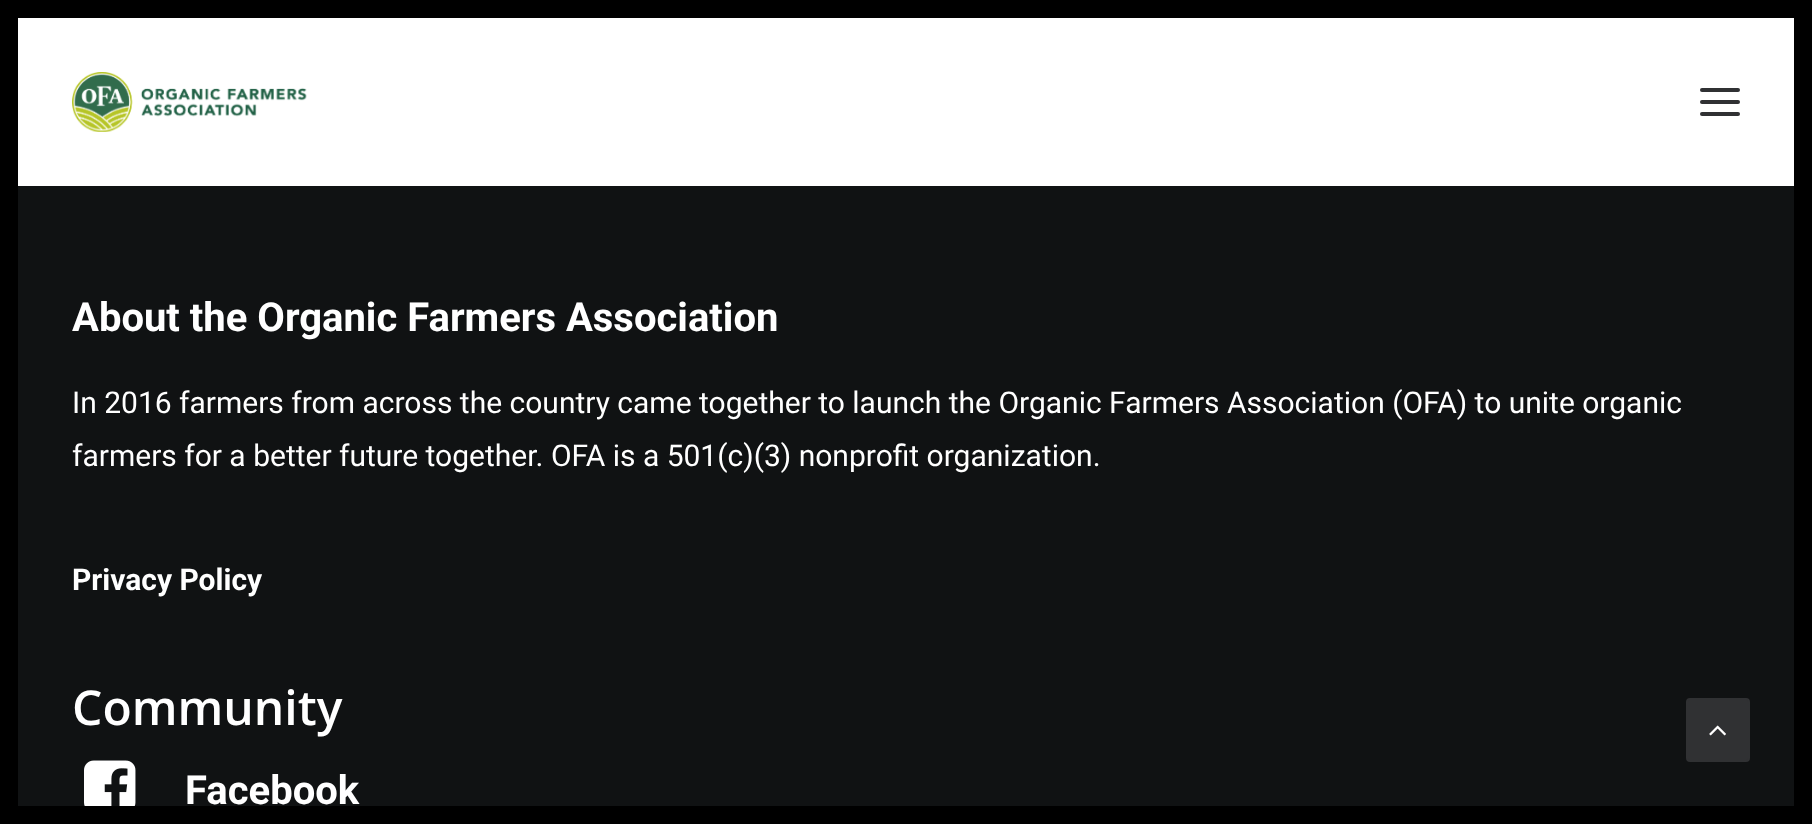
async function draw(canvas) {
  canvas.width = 1812
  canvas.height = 824
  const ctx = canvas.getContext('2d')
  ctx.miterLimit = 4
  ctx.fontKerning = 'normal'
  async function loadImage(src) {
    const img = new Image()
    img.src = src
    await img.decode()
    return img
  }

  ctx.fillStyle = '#101213'
  ctx.fillRect(0, 0, 1812, 824)
  ctx.fillStyle = '#000'
  ctx.fillRect(0, 0, 18, 824)
  ctx.fillRect(18, 0, 1776, 18)
  ctx.fillRect(1794, 0, 18, 806)
  ctx.fillRect(18, 806, 1794, 18)
  ctx.fillStyle = '#fff'
  ctx.fillRect(18, 18, 1776, 168)
  ctx.drawImage(await loadImage('image0.png'), 72, 72, 235, 60)
  ctx.fillStyle = '#303133'
  ctx.beginPath()
  ctx.roundRect(1700, 100, 40, 4, 2)
  ctx.fill()
  ctx.beginPath()
  ctx.roundRect(1700, 88, 40, 4, 2)
  ctx.fill()
  ctx.beginPath()
  ctx.roundRect(1700, 112, 40, 4, 2)
  ctx.fill()
  ctx.font = 'bold 40px Roboto'
  ctx.fillStyle = '#fff'
  ctx.fillText('About the Organic Farmers Association', 72, 331)
  ctx.font = '30px Roboto'
  ctx.fillText('In 2016 farmers from across the country came together to launch the Organic Farmers Association (OFA) to unite organic', 72, 413)
  ctx.fillText('farmers for a better future together. OFA is a 501(c)(3) nonprofit organization.', 72, 466)
  ctx.font = 'bold 30px Roboto'
  ctx.fillText('Privacy Policy', 72, 590)
  ctx.font = '600 48px Open Sans'
  ctx.fillText('Community', 72, 725)
  ctx.drawImage(await loadImage('image1.png'), 84, 760, 52, 46)
  ctx.font = 'bold 40px Roboto'
  ctx.fillText('Facebook', 185, 804)
  ctx.fillStyle = '#303133'
  ctx.beginPath()
  ctx.roundRect(1687, 699, 62, 62, 3)
  ctx.fill()
  ctx.strokeStyle = '#303133'
  ctx.lineWidth = 2
  ctx.stroke()
  ctx.drawImage(await loadImage('image2.png'), 1709, 725, 17, 11)
}

draw(document.querySelector('canvas'))
